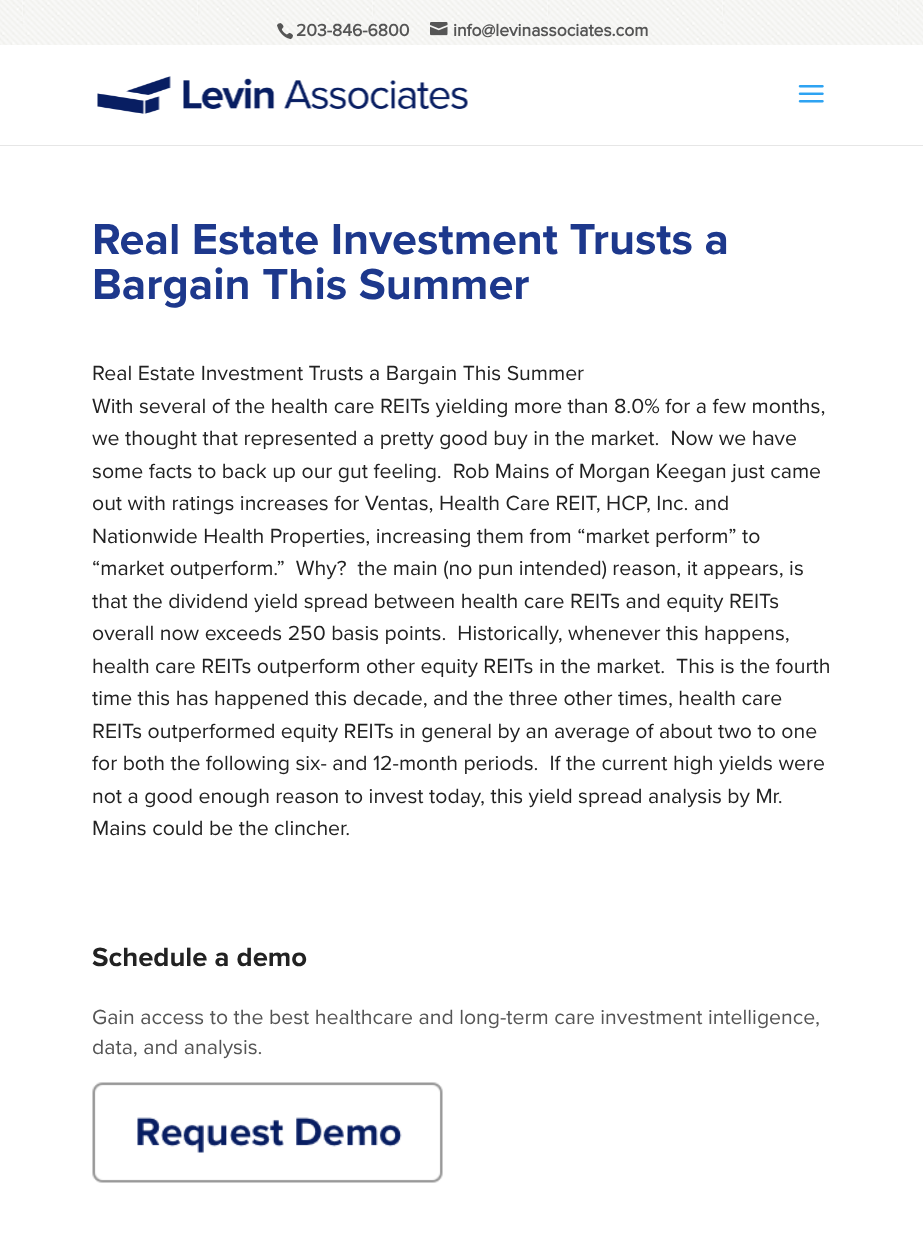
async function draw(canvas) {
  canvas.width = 923
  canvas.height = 1258
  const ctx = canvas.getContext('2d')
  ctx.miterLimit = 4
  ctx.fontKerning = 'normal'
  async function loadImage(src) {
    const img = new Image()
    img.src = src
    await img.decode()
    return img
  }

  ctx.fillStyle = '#fff'
  ctx.fillRect(0, 0, 923, 1258)
  ctx.drawImage(await loadImage('image0.png'), 0, 0, 923, 45)
  ctx.drawImage(await loadImage('image1.png'), 277, 23, 16, 17)
  ctx.font = 'bold 17.5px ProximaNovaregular'
  ctx.fillStyle = '#555'
  ctx.fillText('203-846-6800', 296, 36)
  ctx.drawImage(await loadImage('image2.png'), 430, 22, 18, 14)
  ctx.fillText('info@levinassociates.com', 453, 36)
  ctx.fillStyle = '#e6e6e6'
  ctx.beginPath()
  ctx.moveTo(0, 145)
  ctx.lineTo(0, 146)
  ctx.lineTo(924, 146)
  ctx.lineTo(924, 46)
  ctx.lineTo(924, 145)
  ctx.closePath()
  ctx.fill()
  ctx.drawImage(await loadImage('image3.png'), 97, 76, 371, 38)
  ctx.drawImage(await loadImage('image4.png'), 798, 85, 26, 18)
  ctx.font = 'bold 45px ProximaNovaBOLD'
  ctx.fillStyle = '#1d388c'
  ctx.fillText('Real Estate Investment Trusts a', 92, 254)
  ctx.fillText('Bargain This Summer', 92, 299)
  ctx.font = '21.25px ProximaNovaregular'
  ctx.fillStyle = '#222'
  ctx.fillText('Real Estate Investment Trusts a Bargain This Summer', 92, 380)
  ctx.fillText('With several of the health care REITs yielding more than 8.0% for a few months,', 92, 413)
  ctx.fillText('we thought that represented a pretty good buy in the market.  Now we have', 92, 445)
  ctx.fillText('some facts to back up our gut feeling.  Rob Mains of Morgan Keegan just came', 92, 478)
  ctx.fillText('out with ratings increases for Ventas, Health Care REIT, HCP, Inc. and', 92, 510)
  ctx.fillText('Nationwide Health Properties, increasing them from “market perform” to', 92, 543)
  ctx.fillText('“market outperform.”  Why?  the main (no pun intended) reason, it appears, is', 92, 575)
  ctx.fillText('that the dividend yield spread between health care REITs and equity REITs', 92, 608)
  ctx.fillText('overall now exceeds 250 basis points.  Historically, whenever this happens,', 92, 640)
  ctx.fillText('health care REITs outperform other equity REITs in the market.  This is the fourth', 92, 673)
  ctx.fillText('time this has happened this decade, and the three other times, health care', 92, 705)
  ctx.fillText('REITs outperformed equity REITs in general by an average of about two to one', 92, 738)
  ctx.fillText('for both the following six- and 12-month periods.  If the current high yields were', 92, 770)
  ctx.fillText('not a good enough reason to invest today, this yield spread analysis by Mr.', 92, 803)
  ctx.fillText('Mains could be the clincher.', 92, 835)
  ctx.font = 'bold 27.5px ProximaNovaBOLD'
  ctx.fillText('Schedule a demo', 92, 966)
  ctx.font = '21.25px ProximaNovaregular'
  ctx.fillStyle = '#555'
  ctx.fillText('Gain access to the best healthcare and long-term care investment intelligence,', 92, 1024)
  ctx.fillText('data, and analysis.', 92, 1054)
  ctx.drawImage(await loadImage('image5.png'), 92, 1082, 351, 101)
}

draw(document.querySelector('canvas'))
